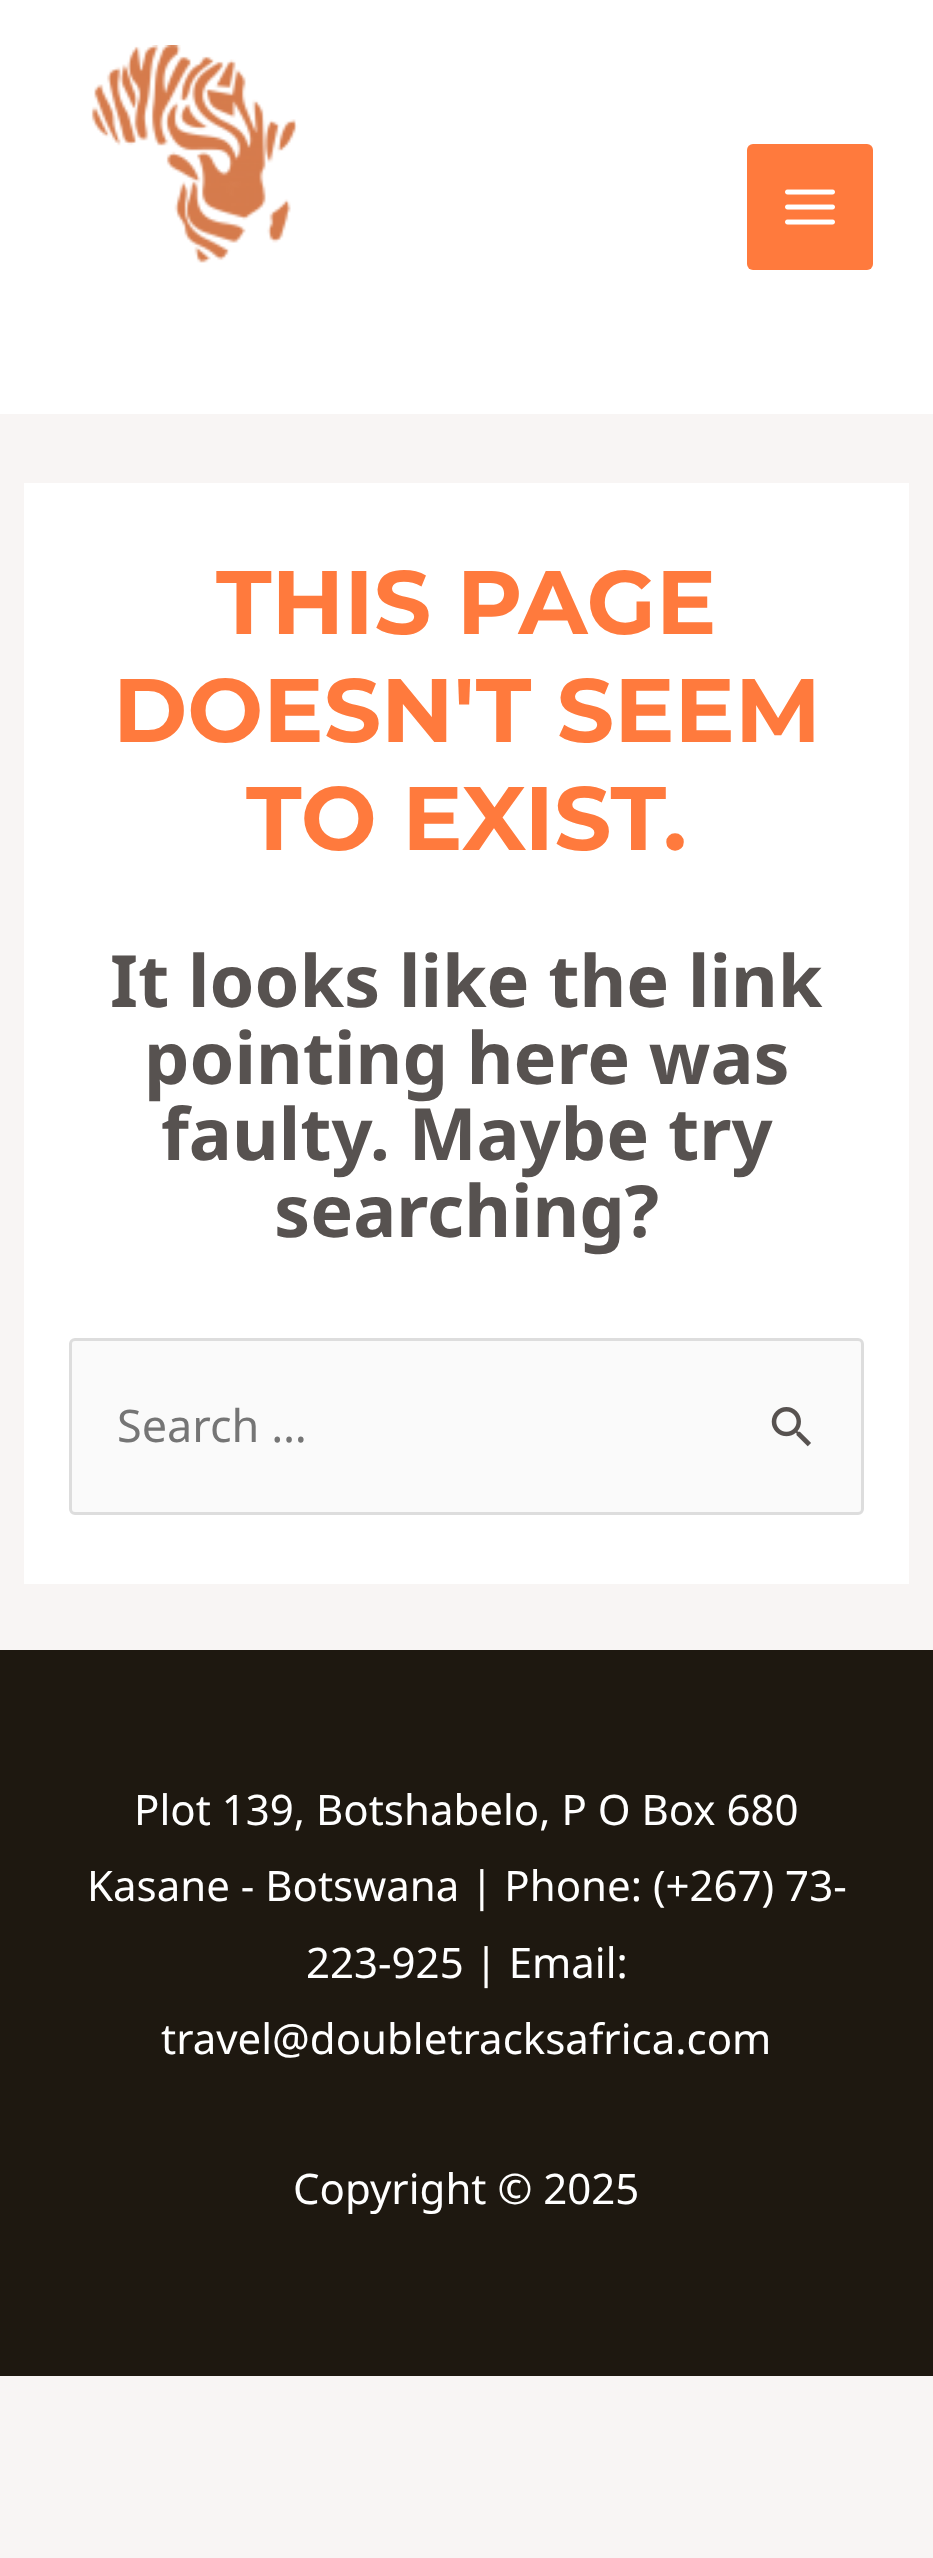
async function draw(canvas) {
  canvas.width = 933
  canvas.height = 2558
  const ctx = canvas.getContext('2d')
  ctx.miterLimit = 4
  ctx.fontKerning = 'normal'
  async function loadImage(src) {
    const img = new Image()
    img.src = src
    await img.decode()
    return img
  }

  ctx.fillStyle = '#f8f5f4'
  ctx.fillRect(0, 0, 933, 2558)
  ctx.fillStyle = '#fff'
  ctx.fillRect(0, 0, 933, 414)
  ctx.drawImage(await loadImage('image0.png'), 91, 45, 207, 218)
  ctx.fillStyle = '#ff7a3d'
  ctx.beginPath()
  ctx.roundRect(747, 144, 126, 126, 6)
  ctx.fill()
  ctx.drawImage(await loadImage('image1.png'), 785, 189, 50, 36)
  ctx.fillStyle = '#fff'
  ctx.fillRect(24, 483, 885, 1101)
  ctx.font = '100 90px Montserrat'
  ctx.fillStyle = '#ff7a3d'
  ctx.fillText('THIS PAGE', 216, 634)
  ctx.fillText('DOESN\'T SEEM', 113, 742)
  ctx.fillText('TO EXIST.', 246, 850)
  ctx.font = 'bold 72px Noto Sans'
  ctx.fillStyle = '#575250'
  ctx.fillText('It looks like the link', 110, 1007)
  ctx.fillText('pointing here was', 144, 1084)
  ctx.fillText('faulty. Maybe try', 161, 1160)
  ctx.fillText('searching?', 274, 1237)
  ctx.fillStyle = '#fafafa'
  ctx.beginPath()
  ctx.roundRect(70.5, 1339.5, 792, 174, 4.5)
  ctx.fill()
  ctx.strokeStyle = '#ddd'
  ctx.lineWidth = 3
  ctx.stroke()
  ctx.font = '45px Noto Sans'
  ctx.fillStyle = '#757575'
  ctx.fillText('Search …', 117, 1442)
  ctx.drawImage(await loadImage('image2.png'), 771, 1407, 40, 40)
  ctx.fillStyle = '#1e1810'
  ctx.fillRect(0, 1650, 933, 726)
  ctx.font = '42px Noto Sans'
  ctx.fillStyle = '#fff'
  ctx.fillText('Plot 139, Botshabelo, P O Box 680', 134, 1825)
  ctx.fillText('Kasane - Botswana | Phone: (+267) 73-', 87, 1901)
  ctx.fillText('223-925 | Email:', 306, 1978)
  ctx.fillText('travel@doubletracksafrica.com', 161, 2054)
  ctx.fillText('Copyright © 2025', 293, 2204)
}

draw(document.querySelector('canvas'))
